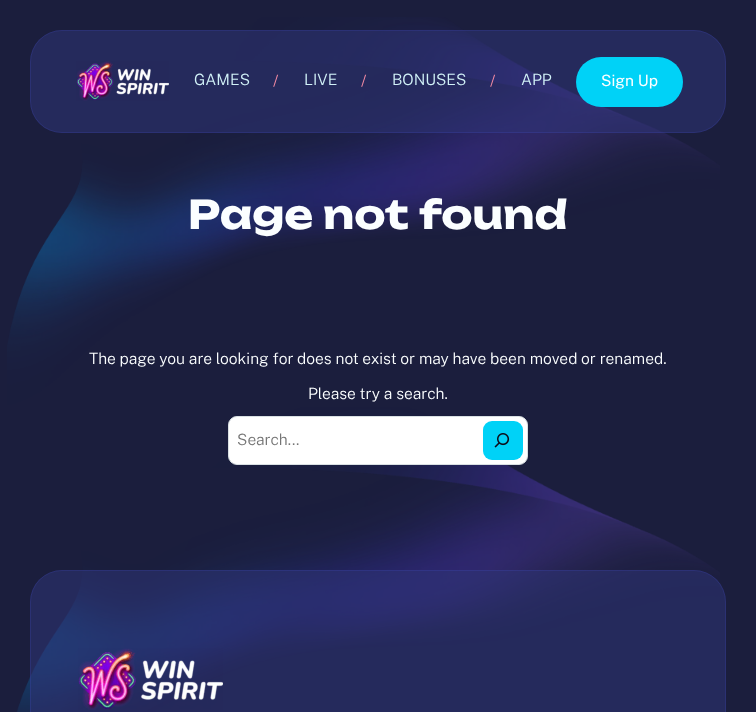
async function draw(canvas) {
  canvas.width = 756
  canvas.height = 712
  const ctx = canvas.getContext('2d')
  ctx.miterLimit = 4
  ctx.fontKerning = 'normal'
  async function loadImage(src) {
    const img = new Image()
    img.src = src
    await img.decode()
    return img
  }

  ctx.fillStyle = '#1b1e3d'
  ctx.fillRect(0, 0, 756, 712)
  ctx.drawImage(await loadImage('image0.png'), 7, 17, 713, 695)
  ctx.fillStyle = '#2f33758f'
  ctx.beginPath()
  ctx.roundRect(30, 30, 696, 103, 32)
  ctx.fill()
  ctx.beginPath()
  ctx.roundRect(30.5, 30.5, 695, 102, 31.5)
  ctx.strokeStyle = '#535bf726'
  ctx.stroke()
  ctx.drawImage(await loadImage('image1.png'), 76, 61, 93, 40)
  ctx.font = '300 15.6px Public Sans'
  ctx.fillStyle = '#d2f2f8'
  ctx.fillText('GAMES', 194, 85)
  ctx.fillStyle = '#f78da5'
  ctx.fillText('/', 273, 86)
  ctx.fillStyle = '#d2f2f8'
  ctx.fillText('LIVE', 304, 85)
  ctx.fillStyle = '#f78da5'
  ctx.fillText('/', 361, 86)
  ctx.fillStyle = '#d2f2f8'
  ctx.fillText('BONUSES', 392, 85)
  ctx.fillStyle = '#f78da5'
  ctx.fillText('/', 490, 86)
  ctx.fillStyle = '#d2f2f8'
  ctx.fillText('APP', 521, 85)
  ctx.fillStyle = '#00d2f7'
  ctx.beginPath()
  ctx.roundRect(576, 57, 107, 50, 25)
  ctx.fill()
  ctx.font = '15.6px Public Sans'
  ctx.fillStyle = '#fbfeff'
  ctx.fillText('Sign Up', 601, 86)
  ctx.font = 'bold 39.5px Unbounded'
  ctx.fillText('Page not found', 188, 229)
  ctx.font = '300 15.6px Public Sans'
  ctx.fillText('The page you are looking for does not exist or may have been moved or renamed.', 89, 364)
  ctx.fillText('Please try a search.', 308, 399)
  ctx.fillStyle = '#fff'
  ctx.beginPath()
  ctx.roundRect(228.5, 416.5, 299, 48, 8.5)
  ctx.fill()
  ctx.strokeStyle = '#d9e0e3'
  ctx.stroke()
  ctx.fillStyle = '#757575'
  ctx.fillText('Search...', 237, 445)
  ctx.fillStyle = '#00d2f7'
  ctx.beginPath()
  ctx.roundRect(483, 421, 40, 39, 9)
  ctx.fill()
  ctx.drawImage(await loadImage('image2.png'), 494, 433, 16, 15)
  ctx.fillStyle = '#2f33758f'
  ctx.beginPath()
  ctx.roundRect(30, 570, 696, 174, 32)
  ctx.fill()
  ctx.beginPath()
  ctx.roundRect(30.5, 570.5, 695, 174, 31.5)
  ctx.strokeStyle = '#535bf726'
  ctx.stroke()
  ctx.drawImage(await loadImage('image3.png'), 78, 648, 145, 62)
}

draw(document.querySelector('canvas'))
